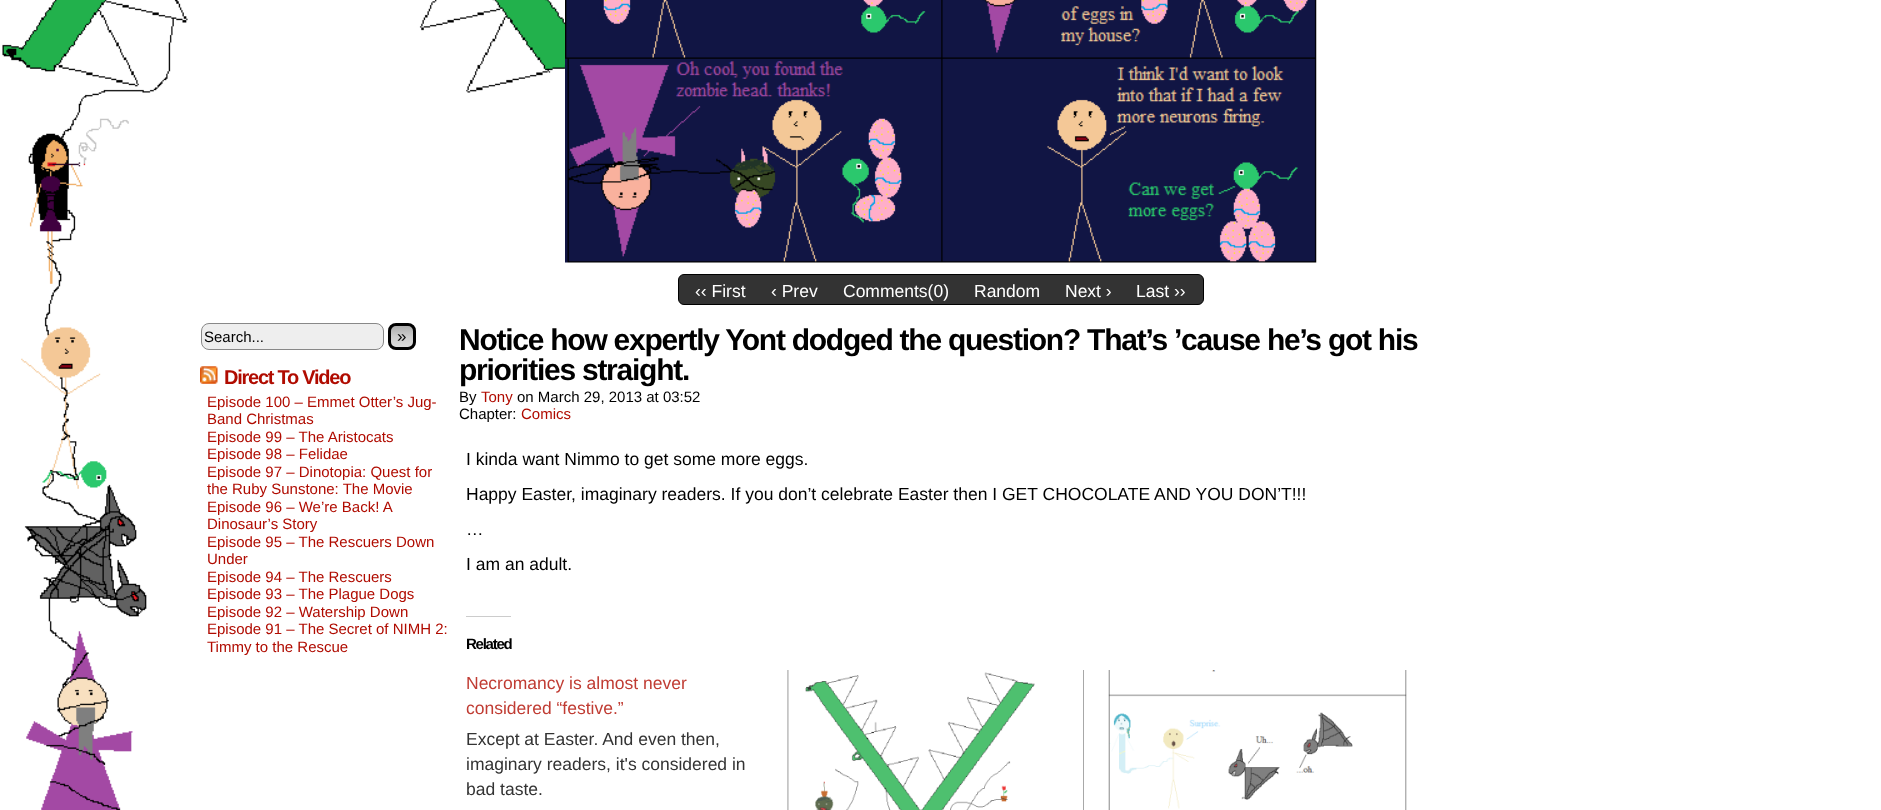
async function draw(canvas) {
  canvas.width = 1881
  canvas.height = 810
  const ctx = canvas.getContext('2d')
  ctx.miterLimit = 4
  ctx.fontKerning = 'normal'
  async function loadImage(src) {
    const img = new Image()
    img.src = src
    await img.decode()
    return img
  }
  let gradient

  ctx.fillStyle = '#fff'
  ctx.fillRect(0, 0, 1881, 810)
  ctx.drawImage(await loadImage('image0.png'), 2, 0, 594, 810)
  ctx.drawImage(await loadImage('image1.png'), 565, 0, 752, 263)
  ctx.fillStyle = '#333'
  ctx.beginPath()
  ctx.roundRect(678.5, 274.5, 525, 30, 5.5)
  ctx.fill()
  ctx.strokeStyle = '#000'
  ctx.stroke()
  ctx.font = '17.5px Liberation Sans'
  ctx.fillStyle = '#fff'
  ctx.fillText('‹‹ First', 695, 297)
  ctx.fillText('‹ Prev', 771, 297)
  ctx.fillText('Comments(0)', 843, 297)
  ctx.fillText('Random', 974, 297)
  ctx.fillText('Next ›', 1065, 297)
  ctx.fillText('Last ››', 1136, 297)
  ctx.fillStyle = '#eee'
  ctx.beginPath()
  ctx.roundRect(201.5, 323.5, 182, 26, 7.5)
  ctx.fill()
  ctx.strokeStyle = '#888'
  ctx.stroke()
  ctx.font = '15px Liberation Sans'
  ctx.fillStyle = '#000'
  ctx.fillText('Search...', 204, 342)
  ctx.save()
  ctx.beginPath()
  ctx.roundRect(388, 323, 28, 27, 8)
  ctx.clip()
  gradient = ctx.createLinearGradient(402, 325, 402, 348)
  gradient.addColorStop(0, '#aaa')
  gradient.addColorStop(0.5, '#ccc')
  gradient.addColorStop(1, '#ddd')
  ctx.fillStyle = gradient
  ctx.fillRect(388, 325, 28, 23)
  ctx.restore()
  ctx.beginPath()
  ctx.roundRect(389.5, 324.5, 25, 24, 6.5)
  ctx.strokeStyle = '#000'
  ctx.lineWidth = 3
  ctx.stroke()
  ctx.font = '17px Liberation Sans'
  ctx.fillText('»', 397, 342)
  ctx.drawImage(await loadImage('image2.png'), 200, 366, 18, 18)
  ctx.letterSpacing = '-1.25px'
  ctx.font = 'bold 20px Liberation Sans'
  ctx.fillStyle = '#b00b00'
  ctx.fillText('Direct To Video', 224, 384)
  ctx.letterSpacing = '0px'
  ctx.font = '15px Liberation Sans'
  ctx.fillText('Episode 100 – Emmet Otter’s Jug-', 207, 407)
  ctx.fillText('Band Christmas', 207, 424)
  ctx.fillText('Episode 99 – The Aristocats', 207, 442)
  ctx.fillText('Episode 98 – Felidae', 207, 459)
  ctx.fillText('Episode 97 – Dinotopia: Quest for', 207, 477)
  ctx.fillText('the Ruby Sunstone: The Movie', 207, 494)
  ctx.fillText('Episode 96 – We’re Back! A', 207, 512)
  ctx.fillText('Dinosaur’s Story', 207, 529)
  ctx.fillText('Episode 95 – The Rescuers Down', 207, 547)
  ctx.fillText('Under', 207, 564)
  ctx.fillText('Episode 94 – The Rescuers', 207, 582)
  ctx.fillText('Episode 93 – The Plague Dogs', 207, 599)
  ctx.fillText('Episode 92 – Watership Down', 207, 617)
  ctx.fillText('Episode 91 – The Secret of NIMH 2:', 207, 634)
  ctx.fillText('Timmy to the Rescue', 207, 652)
  ctx.letterSpacing = '-1.25px'
  ctx.font = 'bold 30px Liberation Sans'
  ctx.fillStyle = '#000'
  ctx.fillText('Notice how expertly Yont dodged the question? That’s ’cause he’s got his', 459, 350)
  ctx.fillText('priorities straight.', 459, 380)
  ctx.letterSpacing = '0px'
  ctx.font = '15px Liberation Sans'
  ctx.fillText('By', 459, 402)
  ctx.fillStyle = '#b00b00'
  ctx.fillText('Tony', 481, 402)
  ctx.fillStyle = '#000'
  ctx.fillText('on March 29, 2013 at 03:52', 517, 402)
  ctx.fillText('Chapter:', 459, 419)
  ctx.fillStyle = '#b00b00'
  ctx.fillText('Comics', 521, 419)
  ctx.font = '17.5px Liberation Sans'
  ctx.fillStyle = '#000'
  ctx.fillText('I kinda want Nimmo to get some more eggs.', 466, 465)
  ctx.fillText('Happy Easter, imaginary readers. If you don’t celebrate Easter then I GET CHOCOLATE AND YOU DON’T!!!', 466, 500)
  ctx.fillText('…', 466, 535)
  ctx.fillText('I am an adult.', 466, 570)
  ctx.fillStyle = '#ccc'
  ctx.fillRect(466, 616, 45, 1)
  ctx.letterSpacing = '-1.25px'
  ctx.font = 'bold 15px Liberation Sans'
  ctx.fillStyle = '#000'
  ctx.fillText('Related', 466, 649)
  ctx.letterSpacing = '0px'
  ctx.font = '17.5px Liberation Sans'
  ctx.fillStyle = '#c03c33'
  ctx.fillText('Necromancy is almost never', 466, 689)
  ctx.fillText('considered “festive.”', 466, 714)
  ctx.fillStyle = '#333'
  ctx.fillText('Except at Easter. And even then,', 466, 745)
  ctx.fillText('imaginary readers, it\'s considered in', 466, 770)
  ctx.fillText('bad taste.', 466, 795)
  ctx.drawImage(await loadImage('image3.png'), 787, 670, 297, 140)
  ctx.drawImage(await loadImage('image4.png'), 1108, 670, 299, 140)
}

draw(document.querySelector('canvas'))
